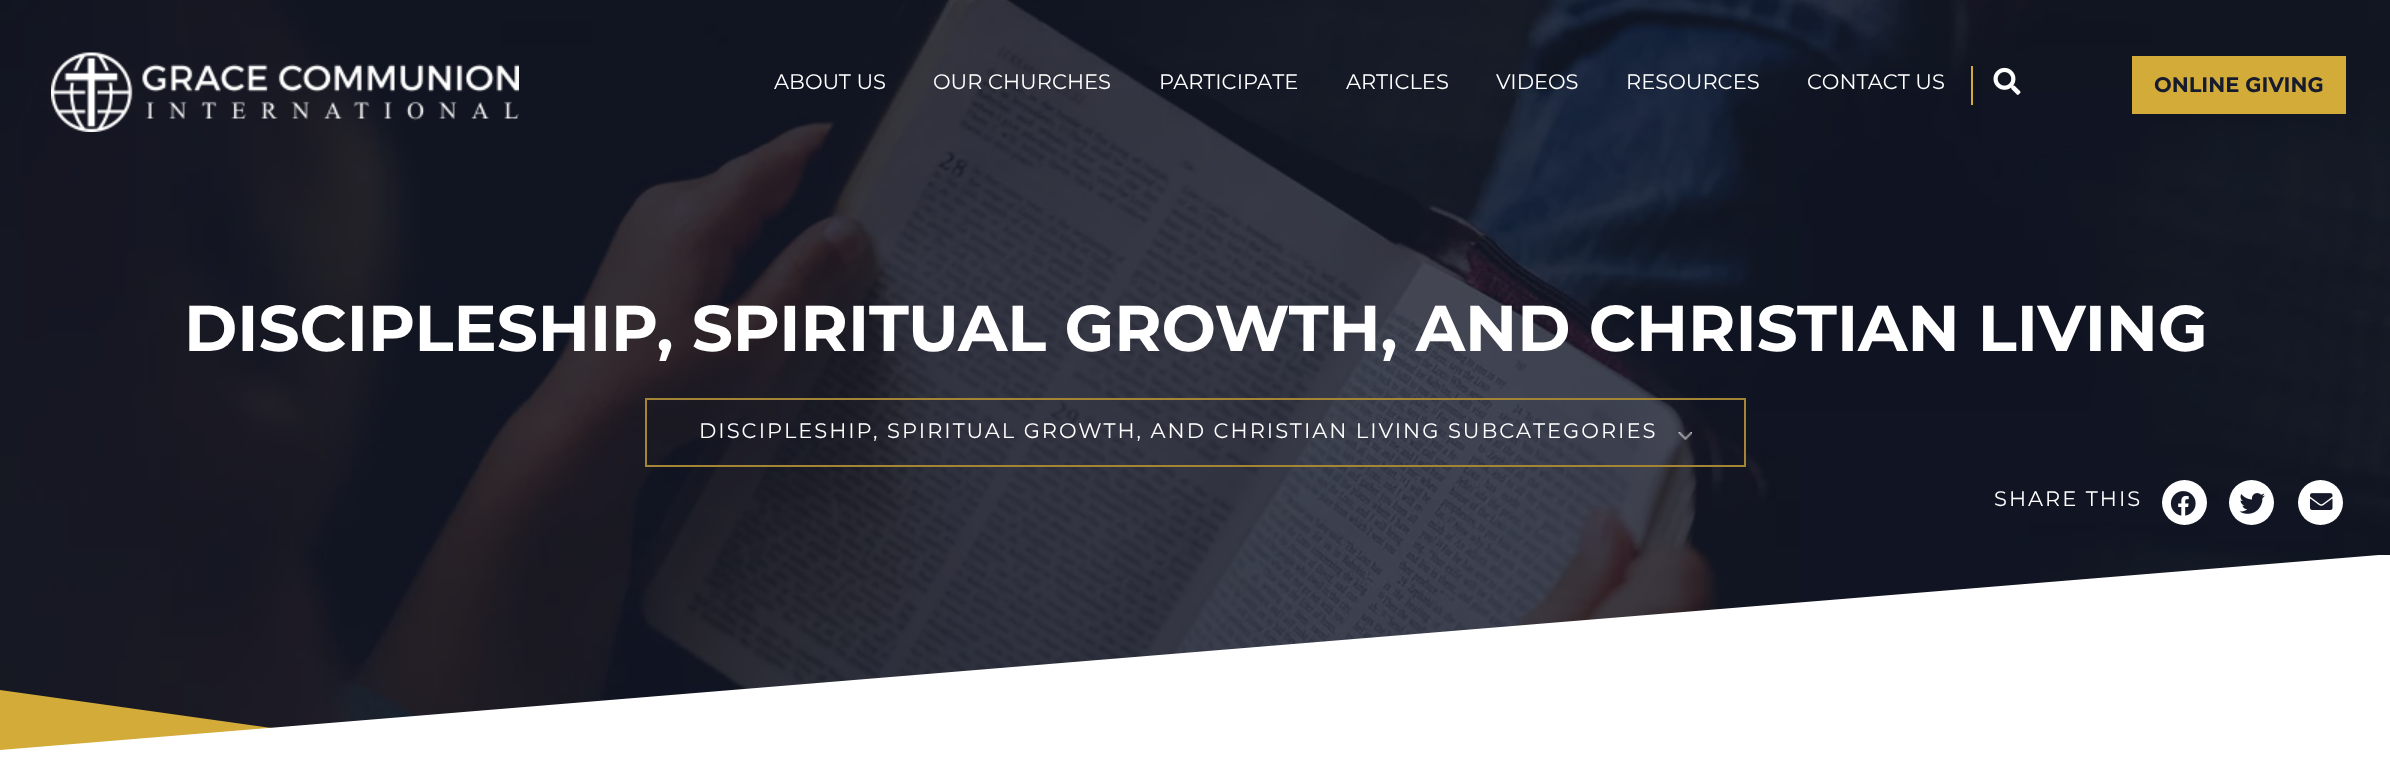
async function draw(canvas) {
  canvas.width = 2390
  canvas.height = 760
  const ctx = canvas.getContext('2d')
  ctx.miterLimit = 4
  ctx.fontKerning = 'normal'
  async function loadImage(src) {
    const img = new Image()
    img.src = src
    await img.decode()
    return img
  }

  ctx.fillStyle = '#161b2d'
  ctx.fillRect(0, 0, 2390, 760)
  ctx.drawImage(await loadImage('image2.png'), 0, 0, 2390, 728)
  ctx.drawImage(await loadImage('image0.png'), 51, 52, 468, 80)
  ctx.font = '21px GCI'
  ctx.fillStyle = '#fff'
  ctx.fillText('ABOUT US', 774, 89)
  ctx.fillText('OUR CHURCHES', 933, 89)
  ctx.fillText('PARTICIPATE', 1159, 89)
  ctx.fillText('ARTICLES', 1346, 89)
  ctx.fillText('VIDEOS', 1496, 89)
  ctx.fillText('RESOURCES', 1626, 89)
  ctx.fillText('CONTACT US', 1807, 89)
  ctx.fillStyle = '#d3ab39'
  ctx.fillRect(1971, 66, 2, 39)
  ctx.drawImage(await loadImage('image1.png'), 1993, 67, 28, 28)
  ctx.fillRect(2132, 56, 214, 58)
  ctx.font = 'bold 21px GCI'
  ctx.fillStyle = '#161b2d'
  ctx.fillText('ONLINE GIVING', 2154, 92)
  ctx.font = 'bold 64.5px GCI'
  ctx.fillStyle = '#fff'
  ctx.fillText('DISCIPLESHIP, SPIRITUAL GROWTH, AND CHRISTIAN LIVING', 184, 351)
  ctx.strokeStyle = '#a38535'
  ctx.lineWidth = 2
  ctx.strokeRect(646, 399, 1099, 67)
  ctx.letterSpacing = '2px'
  ctx.font = '21px GCI'
  ctx.fillText('DISCIPLESHIP, SPIRITUAL GROWTH, AND CHRISTIAN LIVING SUBCATEGORIES', 699, 438)
  ctx.drawImage(await loadImage('image3.png'), 1678, 432, 14, 8)
  ctx.fillText('SHARE THIS', 1994, 506)
  ctx.beginPath()
  ctx.arc(2184.5, 502.5, 22.5, 0, 2 * Math.PI)
  ctx.fill()
  ctx.drawImage(await loadImage('image4.png'), 2170, 491, 26, 25)
  ctx.beginPath()
  ctx.arc(2251.5, 502.5, 22.5, 0, 2 * Math.PI)
  ctx.fill()
  ctx.drawImage(await loadImage('image5.png'), 2239, 493, 26, 21)
  ctx.beginPath()
  ctx.arc(2320.5, 502.5, 22.5, 0, 2 * Math.PI)
  ctx.fill()
  ctx.drawImage(await loadImage('image6.png'), 2310, 493, 23, 17)
  ctx.fillStyle = '#d3ab39'
  ctx.beginPath()
  ctx.moveTo(0, 690)
  ctx.lineTo(743, 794)
  ctx.lineTo(713, 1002)
  ctx.lineTo(-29, 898)
  ctx.closePath()
  ctx.fill()
  ctx.save()
  ctx.beginPath()
  ctx.rect(0, 555, 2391, 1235)
  ctx.clip()
  ctx.fillStyle = '#fff'
  ctx.beginPath()
  ctx.moveTo(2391, 750)
  ctx.lineTo(0, 750)
  ctx.lineTo(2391, 554)
  ctx.closePath()
  ctx.fill()
  ctx.restore()
  ctx.fillStyle = '#fff'
  ctx.fillRect(0, 750, 2390, 10)
}

draw(document.querySelector('canvas'))
